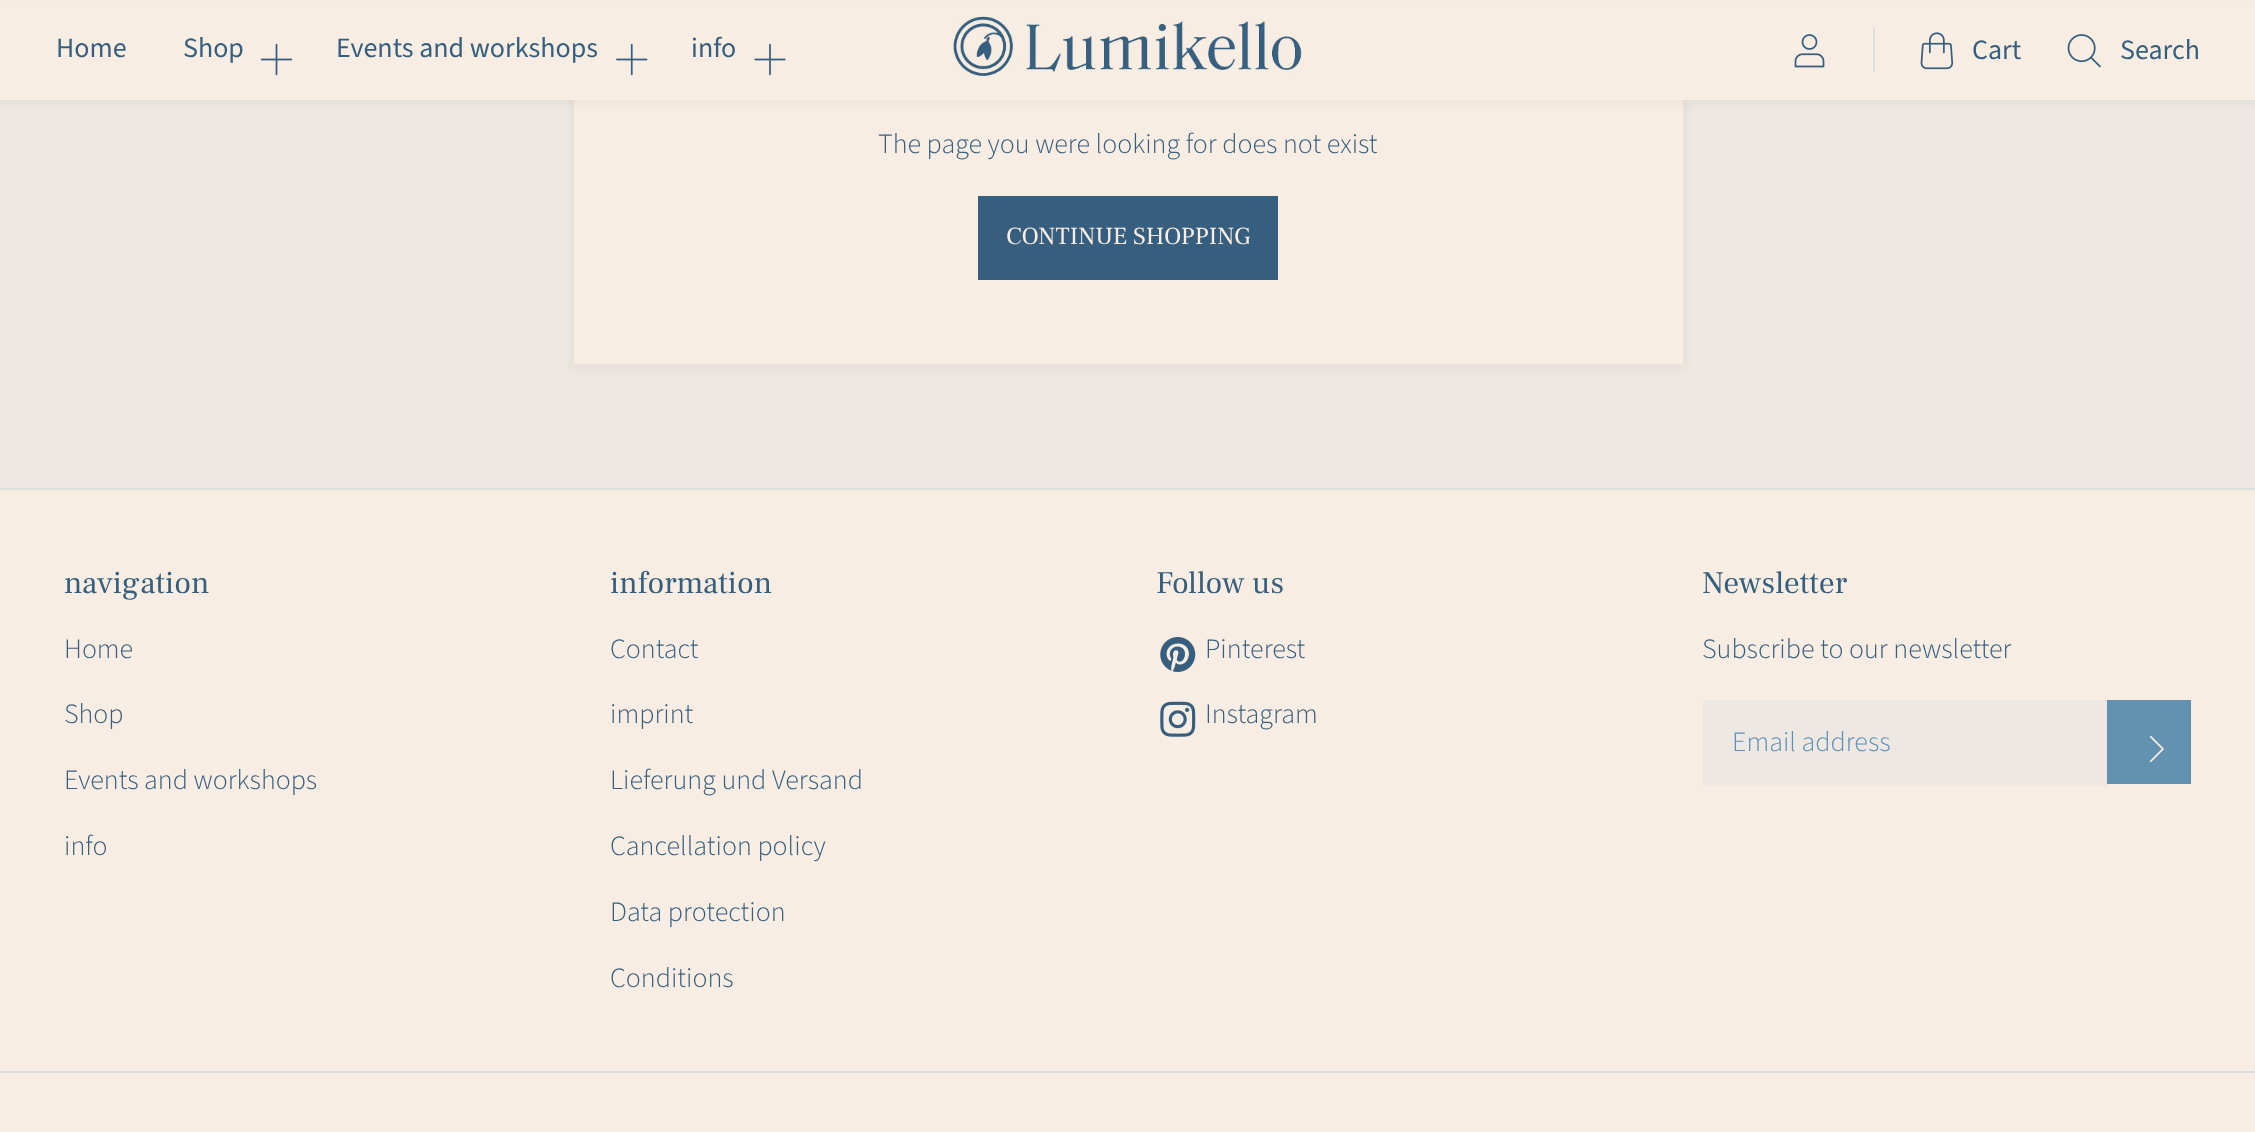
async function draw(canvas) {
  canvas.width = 2255
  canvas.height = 1132
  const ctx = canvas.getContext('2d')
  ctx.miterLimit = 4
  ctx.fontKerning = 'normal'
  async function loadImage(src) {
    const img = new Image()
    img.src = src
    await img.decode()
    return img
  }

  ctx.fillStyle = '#f8ede3'
  ctx.fillRect(0, 0, 2255, 1132)
  ctx.fillStyle = '#eee8e2'
  ctx.fillRect(0, 100, 2255, 388)
  ctx.fillStyle = '#07121c0d'
  ctx.filter = 'blur(4.5px)'
  ctx.beginPath()
  ctx.rect(572, 68, 1113, 301)
  ctx.fill()
  ctx.filter = 'none'
  ctx.fillStyle = '#f8ede3'
  ctx.fillRect(574, 100, 1109, 264)
  ctx.strokeStyle = '#ece2d9'
  ctx.lineWidth = 2
  ctx.strokeRect(573, 66, 1111, 299)
  ctx.fillStyle = '#07121c0d'
  ctx.filter = 'blur(4.5px)'
  ctx.beginPath()
  ctx.rect(0, 4, 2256, 99)
  ctx.fill()
  ctx.filter = 'none'
  ctx.fillStyle = '#f8ede3'
  ctx.fillRect(0, 1, 2255, 99)
  ctx.font = '28px Source Sans Pro'
  ctx.fillStyle = '#365f7f'
  ctx.fillText('Home', 56, 57)
  ctx.fillText('Shop', 183, 57)
  ctx.drawImage(await loadImage('image0.png'), 260, 43, 33, 33)
  ctx.fillText('Events and workshops', 336, 57)
  ctx.drawImage(await loadImage('image1.png'), 616, 43, 32, 33)
  ctx.fillText('info', 691, 57)
  ctx.drawImage(await loadImage('image2.png'), 754, 43, 32, 33)
  ctx.drawImage(await loadImage('image3.png'), 953, 16, 349, 61)
  ctx.fillStyle = '#dedede'
  ctx.fillRect(1873, 28, 2, 44)
  ctx.drawImage(await loadImage('image4.png'), 1794, 34, 31, 34)
  ctx.drawImage(await loadImage('image5.png'), 1920, 32, 34, 38)
  ctx.fillStyle = '#365f7f'
  ctx.fillText('Cart', 1972, 59)
  ctx.drawImage(await loadImage('image6.png'), 2067, 34, 34, 34)
  ctx.fillText('Search', 2120, 59)
  ctx.font = '300 28px Source Sans Pro'
  ctx.fillText('The page you were looking for does not exist', 878, 153)
  ctx.fillRect(978, 196, 300, 84)
  ctx.font = '24.5px Frank Ruhl Libre'
  ctx.fillStyle = '#f8ede3'
  ctx.fillText('CONTINUE SHOPPING', 1006, 244)
  ctx.fillStyle = '#dedede'
  ctx.fillRect(0, 488, 2255, 2)
  ctx.font = '31.5px Frank Ruhl Libre'
  ctx.fillStyle = '#365f7f'
  ctx.fillText('navigation', 64, 593)
  ctx.font = '300 28px Source Sans Pro'
  ctx.fillText('Home', 64, 658)
  ctx.fillText('Shop', 64, 723)
  ctx.fillText('Events and workshops', 64, 789)
  ctx.fillText('info', 64, 855)
  ctx.font = '31.5px Frank Ruhl Libre'
  ctx.fillText('information', 610, 593)
  ctx.font = '300 28px Source Sans Pro'
  ctx.fillText('Contact', 610, 658)
  ctx.fillText('imprint', 610, 723)
  ctx.fillText('Lieferung und Versand', 610, 789)
  ctx.fillText('Cancellation policy', 610, 855)
  ctx.fillText('Data protection', 610, 921)
  ctx.fillText('Conditions', 610, 987)
  ctx.font = '31.5px Frank Ruhl Libre'
  ctx.fillText('Follow us', 1156, 593)
  ctx.drawImage(await loadImage('image7.png'), 1160, 637, 36, 35)
  ctx.font = '300 28px Source Sans Pro'
  ctx.fillText('Pinterest', 1205, 658)
  ctx.drawImage(await loadImage('image8.png'), 1160, 701, 36, 36)
  ctx.fillText('Instagram', 1205, 723)
  ctx.font = '31.5px Frank Ruhl Libre'
  ctx.fillText('Newsletter', 1702, 593)
  ctx.font = '300 28px Source Sans Pro'
  ctx.fillText('Subscribe to our newsletter', 1702, 658)
  ctx.fillStyle = '#eee8e2'
  ctx.fillRect(1703, 700, 404, 86)
  ctx.fillStyle = '#5c90b8'
  ctx.fillText('Email address', 1732, 751)
  ctx.fillStyle = '#6391b0'
  ctx.fillRect(2107, 700, 84, 84)
  ctx.drawImage(await loadImage('image9.png'), 2149, 735, 15, 28)
  ctx.fillStyle = '#dedede'
  ctx.fillRect(0, 1071, 2255, 2)
}

draw(document.querySelector('canvas'))
